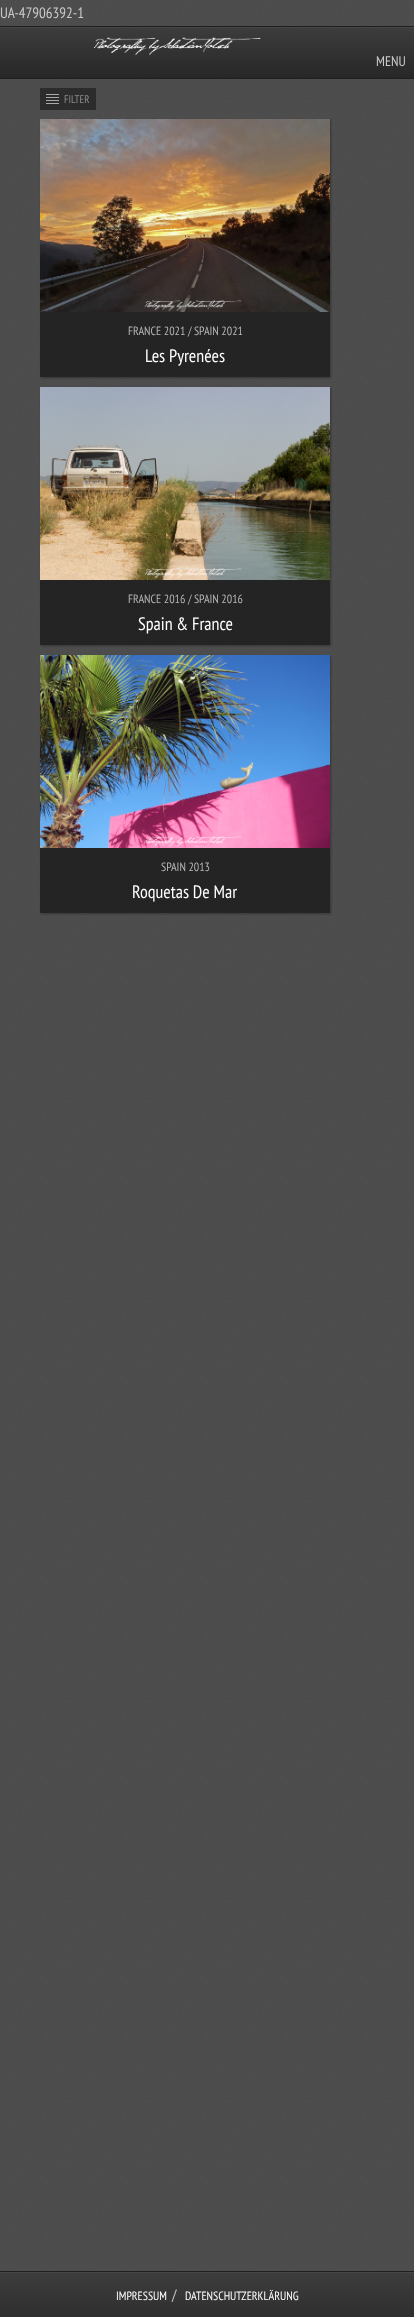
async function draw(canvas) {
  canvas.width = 414
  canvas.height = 2317
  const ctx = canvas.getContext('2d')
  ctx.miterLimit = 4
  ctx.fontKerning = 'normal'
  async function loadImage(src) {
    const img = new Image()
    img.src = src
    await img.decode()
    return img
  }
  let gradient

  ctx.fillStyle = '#6a6a6a'
  ctx.fillRect(0, 0, 414, 2317)
  ctx.drawImage(await loadImage('image0.png'), 0, 0, 414, 2271)
  ctx.font = '15px PT Sans Narrow'
  ctx.fillStyle = '#cbcbcb'
  ctx.fillText('UA-47906392-1', 0, 18)
  ctx.fillStyle = '#0000004d'
  ctx.filter = 'blur(0.5px)'
  ctx.beginPath()
  ctx.rect(0, 26, 414, 53)
  ctx.fill()
  ctx.filter = 'none'
  gradient = ctx.createLinearGradient(207, 27, 207, 78)
  gradient.addColorStop(0, '#3d3d3d')
  gradient.addColorStop(1, '#272727')
  ctx.fillStyle = gradient
  ctx.fillRect(0, 28, 414, 50)
  ctx.fillStyle = '#474747'
  ctx.fillRect(0, 27, 414, 1)
  ctx.fillStyle = '#1f1f1f'
  ctx.fillRect(0, 26, 414, 1)
  ctx.fillRect(0, 78, 414, 1)
  ctx.drawImage(await loadImage('image1.png'), 93, 37, 168, 19)
  ctx.font = '14px PT Sans Narrow'
  ctx.fillStyle = '#cbcbcb'
  ctx.fillText('MENU', 376, 66)
  ctx.fillStyle = '#0000006b'
  ctx.fillRect(40, 88, 56, 22)
  ctx.drawImage(await loadImage('image2.png'), 46, 94, 13, 10)
  ctx.font = '11px PT Sans Narrow'
  ctx.fillStyle = '#8c8c8c'
  ctx.fillText('FILTER', 64, 103)
  ctx.fillStyle = '#0000004d'
  ctx.filter = 'blur(1px)'
  ctx.beginPath()
  ctx.rect(41, 120, 290, 258)
  ctx.fill()
  ctx.filter = 'none'
  ctx.fillStyle = '#262626'
  ctx.fillRect(40, 312, 290, 65)
  ctx.drawImage(await loadImage('image3.png'), 40, 312, 290, 65)
  ctx.drawImage(await loadImage('image4.png'), 40, 119, 290, 193)
  ctx.font = '12px PT Sans Narrow'
  ctx.fillStyle = '#b5b5b5'
  ctx.fillText('FRANCE 2021 / SPAIN 2021', 128, 335)
  ctx.font = '18px PT Sans Narrow'
  ctx.fillStyle = '#fff'
  ctx.fillText('Les Pyrenées', 145, 362)
  ctx.fillStyle = '#0000004d'
  ctx.filter = 'blur(1px)'
  ctx.beginPath()
  ctx.rect(41, 388, 290, 258)
  ctx.fill()
  ctx.filter = 'none'
  ctx.fillStyle = '#262626'
  ctx.fillRect(40, 580, 290, 65)
  ctx.drawImage(await loadImage('image3.png'), 40, 580, 290, 65)
  ctx.drawImage(await loadImage('image5.png'), 40, 387, 290, 193)
  ctx.font = '12px PT Sans Narrow'
  ctx.fillStyle = '#b5b5b5'
  ctx.fillText('FRANCE 2016 / SPAIN 2016', 128, 603)
  ctx.font = '18px PT Sans Narrow'
  ctx.fillStyle = '#fff'
  ctx.fillText('Spain & France', 138, 630)
  ctx.fillStyle = '#0000004d'
  ctx.filter = 'blur(1px)'
  ctx.beginPath()
  ctx.rect(41, 656, 290, 258)
  ctx.fill()
  ctx.filter = 'none'
  ctx.fillStyle = '#262626'
  ctx.fillRect(40, 848, 290, 65)
  ctx.drawImage(await loadImage('image3.png'), 40, 848, 290, 65)
  ctx.drawImage(await loadImage('image6.png'), 40, 655, 290, 193)
  ctx.font = '12px PT Sans Narrow'
  ctx.fillStyle = '#b5b5b5'
  ctx.fillText('SPAIN 2013', 161, 871)
  ctx.font = '18px PT Sans Narrow'
  ctx.fillStyle = '#fff'
  ctx.fillText('Roquetas De Mar', 132, 898)
  ctx.fillStyle = '#0000004d'
  ctx.filter = 'blur(0.5px)'
  ctx.beginPath()
  ctx.rect(0, 2271, 414, 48)
  ctx.fill()
  ctx.filter = 'none'
  gradient = ctx.createLinearGradient(207, 2272, 207, 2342)
  gradient.addColorStop(0, '#3d3d3d')
  gradient.addColorStop(1, '#272727')
  ctx.fillStyle = gradient
  ctx.fillRect(0, 2273, 414, 44)
  ctx.fillStyle = '#474747'
  ctx.fillRect(0, 2272, 414, 1)
  ctx.fillStyle = '#1f1f1f'
  ctx.fillRect(0, 2271, 414, 1)
  ctx.font = '12px PT Sans Narrow'
  ctx.fillStyle = '#fff'
  ctx.fillText('IMPRESSUM', 116, 2300)
  ctx.font = '15px PT Sans Narrow'
  ctx.fillStyle = '#cbcbcb'
  ctx.fillText('/', 172, 2300)
  ctx.font = '12px PT Sans Narrow'
  ctx.fillStyle = '#fff'
  ctx.fillText('DATENSCHUTZERKLÄRUNG', 185, 2300)
}

draw(document.querySelector('canvas'))
